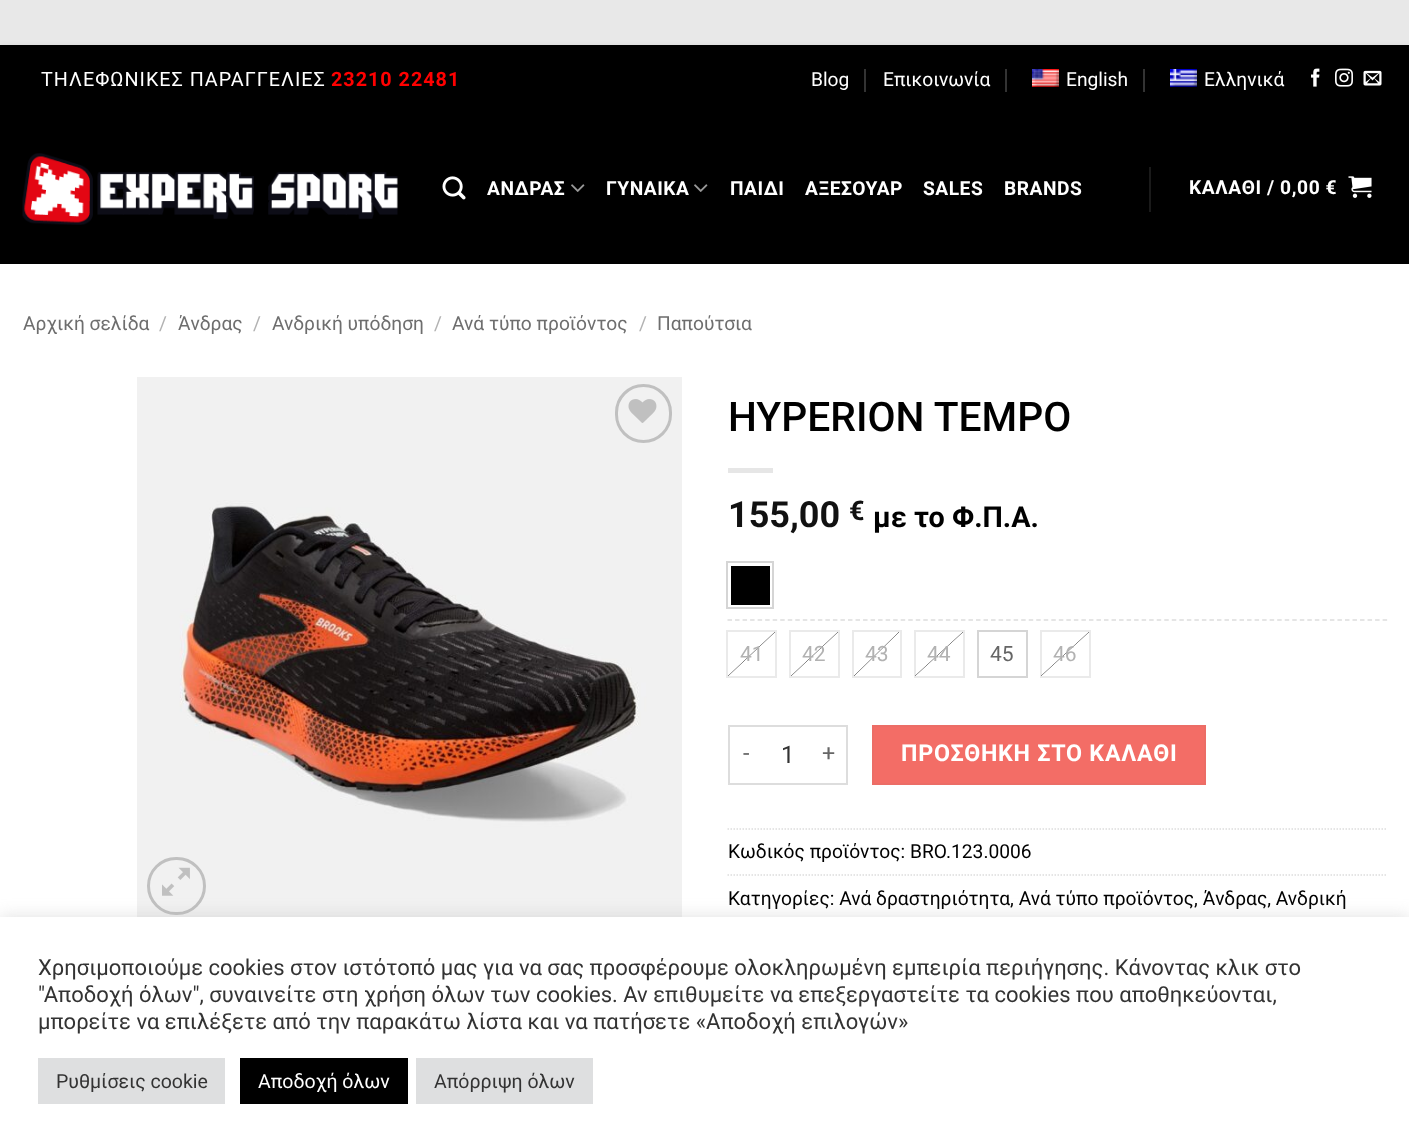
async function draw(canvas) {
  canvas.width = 1409
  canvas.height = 1148
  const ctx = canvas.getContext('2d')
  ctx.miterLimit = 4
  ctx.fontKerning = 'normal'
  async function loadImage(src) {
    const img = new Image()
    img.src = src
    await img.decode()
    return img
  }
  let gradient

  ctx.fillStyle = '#e8e8e8'
  ctx.fillRect(0, 0, 1409, 1148)
  ctx.fillStyle = '#0000003b'
  ctx.filter = 'blur(4.5px)'
  ctx.beginPath()
  ctx.rect(0, 50, 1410, 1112)
  ctx.fill()
  ctx.filter = 'none'
  ctx.fillStyle = '#fff'
  ctx.fillRect(0, 264, 1409, 653)
  ctx.fillStyle = '#000'
  ctx.fillRect(0, 45, 1409, 219)
  ctx.letterSpacing = '1px'
  ctx.font = '19.75px Roboto'
  ctx.fillStyle = '#fff'
  ctx.fillText('ΤΗΛΕΦΩΝΙΚΕΣ ΠΑΡΑΓΓΕΛΙΕΣ', 41, 86)
  ctx.font = 'bold 19.75px Roboto'
  ctx.fillStyle = '#f00'
  ctx.fillText('23210 22481', 331, 86)
  ctx.letterSpacing = '0px'
  ctx.font = '19.2px Roboto'
  ctx.fillStyle = '#fff'
  ctx.fillText('Blog', 811, 86)
  ctx.fillStyle = '#333'
  ctx.fillRect(864, 69, 2, 23)
  ctx.fillStyle = '#fff'
  ctx.fillText('Επικοινωνία', 883, 86)
  ctx.fillStyle = '#333'
  ctx.fillRect(1005, 69, 2, 23)
  ctx.drawImage(await loadImage('image0.png'), 1032, 69, 27, 18)
  ctx.fillStyle = '#fff'
  ctx.fillText('English', 1066, 86)
  ctx.fillStyle = '#333'
  ctx.fillRect(1143, 69, 2, 23)
  ctx.drawImage(await loadImage('image1.png'), 1170, 69, 27, 18)
  ctx.fillStyle = '#fff'
  ctx.fillText('Ελληνικά', 1204, 86)
  ctx.drawImage(await loadImage('image2.png'), 1311, 68, 9, 19)
  ctx.drawImage(await loadImage('image3.png'), 1335, 68, 18, 19)
  ctx.drawImage(await loadImage('image4.png'), 1363, 70, 19, 16)
  ctx.drawImage(await loadImage('image5.png'), 22, 153, 376, 72)
  ctx.drawImage(await loadImage('image6.png'), 442, 176, 24, 24)
  ctx.letterSpacing = '0.5px'
  ctx.font = 'bold 19.2px Roboto'
  ctx.fillText('ΑΝΔΡΑΣ', 487, 195)
  ctx.drawImage(await loadImage('image7.png'), 571, 184, 14, 8)
  ctx.fillText('ΓΥΝΑΙΚΑ', 606, 195)
  ctx.drawImage(await loadImage('image7.png'), 694, 184, 14, 8)
  ctx.fillText('ΠΑΙΔΙ', 730, 195)
  ctx.fillText('ΑΞΕΣΟΥΑΡ', 805, 195)
  ctx.fillText('SALES', 923, 195)
  ctx.fillText('BRANDS', 1004, 195)
  ctx.fillStyle = '#1a1a1a'
  ctx.fillRect(1149, 167, 2, 45)
  ctx.letterSpacing = '0.6px'
  ctx.fillStyle = '#fff'
  ctx.fillText('ΚΑΛΑΘΙ / 0,00 €', 1189, 194)
  ctx.drawImage(await loadImage('image8.png'), 1348, 176, 24, 22)
  ctx.letterSpacing = '0px'
  ctx.font = '19.2px Roboto'
  ctx.fillStyle = '#6e6e6e'
  ctx.fillText('Αρχική σελίδα', 23, 330)
  ctx.fillStyle = '#b2b2b2'
  ctx.fillText('/', 159, 330)
  ctx.fillStyle = '#6e6e6e'
  ctx.fillText('Άνδρας', 178, 330)
  ctx.fillStyle = '#b2b2b2'
  ctx.fillText('/', 253, 330)
  ctx.fillStyle = '#6e6e6e'
  ctx.fillText('Ανδρική υπόδηση', 272, 330)
  ctx.fillStyle = '#b2b2b2'
  ctx.fillText('/', 434, 330)
  ctx.fillStyle = '#6e6e6e'
  ctx.fillText('Ανά τύπο προϊόντος', 452, 330)
  ctx.fillStyle = '#b2b2b2'
  ctx.fillText('/', 639, 330)
  ctx.fillStyle = '#6e6e6e'
  ctx.fillText('Παπούτσια', 657, 330)
  ctx.drawImage(await loadImage('image9.png'), 137, 377, 545, 540)
  ctx.beginPath()
  ctx.roundRect(616.5, 385.5, 54, 56, 27)
  ctx.strokeStyle = '#c0c0c0'
  ctx.lineWidth = 3
  ctx.stroke()
  ctx.drawImage(await loadImage('image10.png'), 628, 399, 29, 24)
  ctx.beginPath()
  ctx.roundRect(148.5, 858.5, 56, 55, 27.5)
  ctx.stroke()
  ctx.drawImage(await loadImage('image11.png'), 162, 867, 28, 29)
  ctx.font = '500 40.75px Roboto'
  ctx.fillStyle = '#000'
  ctx.fillText('HYPERION TEMPO', 728, 431)
  ctx.fillStyle = '#e6e6e6'
  ctx.fillRect(728, 468, 45, 5)
  ctx.font = 'bold 36px Roboto'
  ctx.fillStyle = '#111'
  ctx.fillText('155,00', 728, 527)
  ctx.font = 'bold 27px Roboto'
  ctx.fillText('€', 849, 520)
  ctx.font = 'bold 28.75px Roboto'
  ctx.fillStyle = '#000'
  ctx.fillText('με το Φ.Π.Α.', 873, 527)
  ctx.strokeStyle = '#d5d5d5'
  ctx.lineWidth = 2
  ctx.strokeRect(727, 562, 46, 46)
  ctx.fillRect(731, 566, 39, 39)
  ctx.beginPath()
  ctx.moveTo(727.5, 620)
  ctx.lineTo(1387.5, 620)
  ctx.strokeStyle = '#ddd'
  ctx.lineWidth = 1.5
  ctx.setLineDash([4.5, 3.03])
  ctx.stroke()
  ctx.strokeStyle = '#eaeaea'
  ctx.lineWidth = 2
  ctx.setLineDash([])
  ctx.strokeRect(727, 631, 49, 46)
  gradient = ctx.createLinearGradient(774, 678, 729, 630)
  gradient.addColorStop(0.49, '#80808000')
  gradient.addColorStop(0.5, '#808080')
  gradient.addColorStop(0.51, '#80808000')
  ctx.fillStyle = gradient
  ctx.fillRect(728, 632, 47, 44)
  ctx.font = '21px Roboto'
  ctx.fillStyle = '#b2b2b2'
  ctx.fillText('41', 740, 661)
  ctx.strokeRect(790, 631, 49, 46)
  gradient = ctx.createLinearGradient(837, 678, 792, 630)
  gradient.addColorStop(0.49, '#80808000')
  gradient.addColorStop(0.5, '#808080')
  gradient.addColorStop(0.51, '#80808000')
  ctx.fillStyle = gradient
  ctx.fillRect(791, 632, 47, 44)
  ctx.fillStyle = '#b2b2b2'
  ctx.fillText('42', 802, 661)
  ctx.strokeRect(853, 631, 48, 46)
  gradient = ctx.createLinearGradient(899, 677, 854, 631)
  gradient.addColorStop(0.49, '#80808000')
  gradient.addColorStop(0.5, '#808080')
  gradient.addColorStop(0.51, '#80808000')
  ctx.fillStyle = gradient
  ctx.fillRect(854, 632, 45, 44)
  ctx.fillStyle = '#b2b2b2'
  ctx.fillText('43', 865, 661)
  ctx.strokeRect(915, 631, 49, 46)
  gradient = ctx.createLinearGradient(961, 678, 917, 630)
  gradient.addColorStop(0.49, '#80808000')
  gradient.addColorStop(0.5, '#808080')
  gradient.addColorStop(0.51, '#80808000')
  ctx.fillStyle = gradient
  ctx.fillRect(915, 632, 48, 44)
  ctx.fillStyle = '#b2b2b2'
  ctx.fillText('44', 927, 661)
  ctx.strokeStyle = '#d5d5d5'
  ctx.strokeRect(978, 631, 49, 46)
  ctx.fillStyle = '#666'
  ctx.fillText('45', 990, 661)
  ctx.strokeStyle = '#eaeaea'
  ctx.strokeRect(1041, 631, 49, 46)
  gradient = ctx.createLinearGradient(1087, 678, 1043, 630)
  gradient.addColorStop(0.49, '#80808000')
  gradient.addColorStop(0.5, '#808080')
  gradient.addColorStop(0.51, '#80808000')
  ctx.fillStyle = gradient
  ctx.fillRect(1041, 632, 48, 44)
  ctx.fillStyle = '#b2b2b2'
  ctx.fillText('46', 1053, 661)
  ctx.fillStyle = '#ddd'
  ctx.fillRect(728, 725, 120, 2)
  ctx.fillRect(728, 783, 84, 2)
  ctx.fillRect(728, 725, 2, 60)
  ctx.letterSpacing = '0.75px'
  ctx.font = '23.25px Roboto'
  ctx.fillStyle = '#666'
  ctx.fillText('-', 743, 761)
  ctx.letterSpacing = '0px'
  ctx.font = '24px Roboto'
  ctx.fillStyle = '#333'
  ctx.fillText('1', 781, 763)
  ctx.fillStyle = '#ddd'
  ctx.fillRect(846, 725, 2, 60)
  ctx.fillRect(812, 783, 36, 2)
  ctx.letterSpacing = '0.75px'
  ctx.font = '23.25px Roboto'
  ctx.fillStyle = '#666'
  ctx.fillText('+', 822, 761)
  ctx.fillStyle = '#f36d66'
  ctx.beginPath()
  ctx.rect(873, 726, 332, 58)
  ctx.fill()
  ctx.strokeStyle = '#ec6d66'
  ctx.stroke()
  ctx.font = 'bold 23.25px Roboto'
  ctx.fillStyle = '#fff'
  ctx.fillText('ΠΡΟΣΘΗΚΗ ΣΤΟ ΚΑΛΑΘΙ', 901, 761)
  ctx.beginPath()
  ctx.moveTo(727.5, 829)
  ctx.lineTo(1387.5, 829)
  ctx.strokeStyle = '#ddd'
  ctx.lineWidth = 1.5
  ctx.setLineDash([1.5, 1.5])
  ctx.stroke()
  ctx.letterSpacing = '0px'
  ctx.font = '19.2px Roboto'
  ctx.fillStyle = '#000'
  ctx.fillText('Κωδικός προϊόντος: BRO.123.0006', 728, 858)
  ctx.beginPath()
  ctx.moveTo(727.5, 875)
  ctx.lineTo(1387.5, 875)
  ctx.stroke()
  ctx.fillText('Κατηγορίες: Ανά δραστηριότητα, Ανά τύπο προϊόντος, Άνδρας, Ανδρική', 728, 905)
  ctx.fillStyle = '#acabab4d'
  ctx.filter = 'blur(7.5px)'
  ctx.beginPath()
  ctx.rect(0, 915, 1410, 233)
  ctx.fill()
  ctx.filter = 'none'
  ctx.fillStyle = '#fff'
  ctx.fillRect(0, 917, 1409, 231)
  ctx.font = '22px Roboto'
  ctx.fillStyle = '#333'
  ctx.fillText('Χρησιμοποιούμε cookies στον ιστότοπό μας για να σας προσφέρουμε ολοκληρωμένη εμπειρία περιήγησης. Κάνοντας κλικ στο', 38, 975)
  ctx.fillText('"Αποδοχή όλων", συναινείτε στη χρήση όλων των cookies. Αν επιθυμείτε να επεξεργαστείτε τα cookies που αποθηκεύονται,', 38, 1002)
  ctx.fillText('μπορείτε να επιλέξετε από την παρακάτω λίστα και να πατήσετε «Αποδοχή επιλογών»', 38, 1029)
  ctx.fillStyle = '#dedfe0'
  ctx.fillRect(38, 1058, 187, 46)
  ctx.font = '19.5px Roboto'
  ctx.fillStyle = '#333'
  ctx.fillText('Ρυθμίσεις cookie', 56, 1088)
  ctx.fillStyle = '#000'
  ctx.fillRect(240, 1058, 168, 46)
  ctx.fillStyle = '#fff'
  ctx.fillText('Αποδοχή όλων', 258, 1088)
  ctx.fillStyle = '#dedfe0'
  ctx.fillRect(416, 1058, 177, 46)
  ctx.fillStyle = '#333'
  ctx.fillText('Απόρριψη όλων', 434, 1088)
}

draw(document.querySelector('canvas'))
